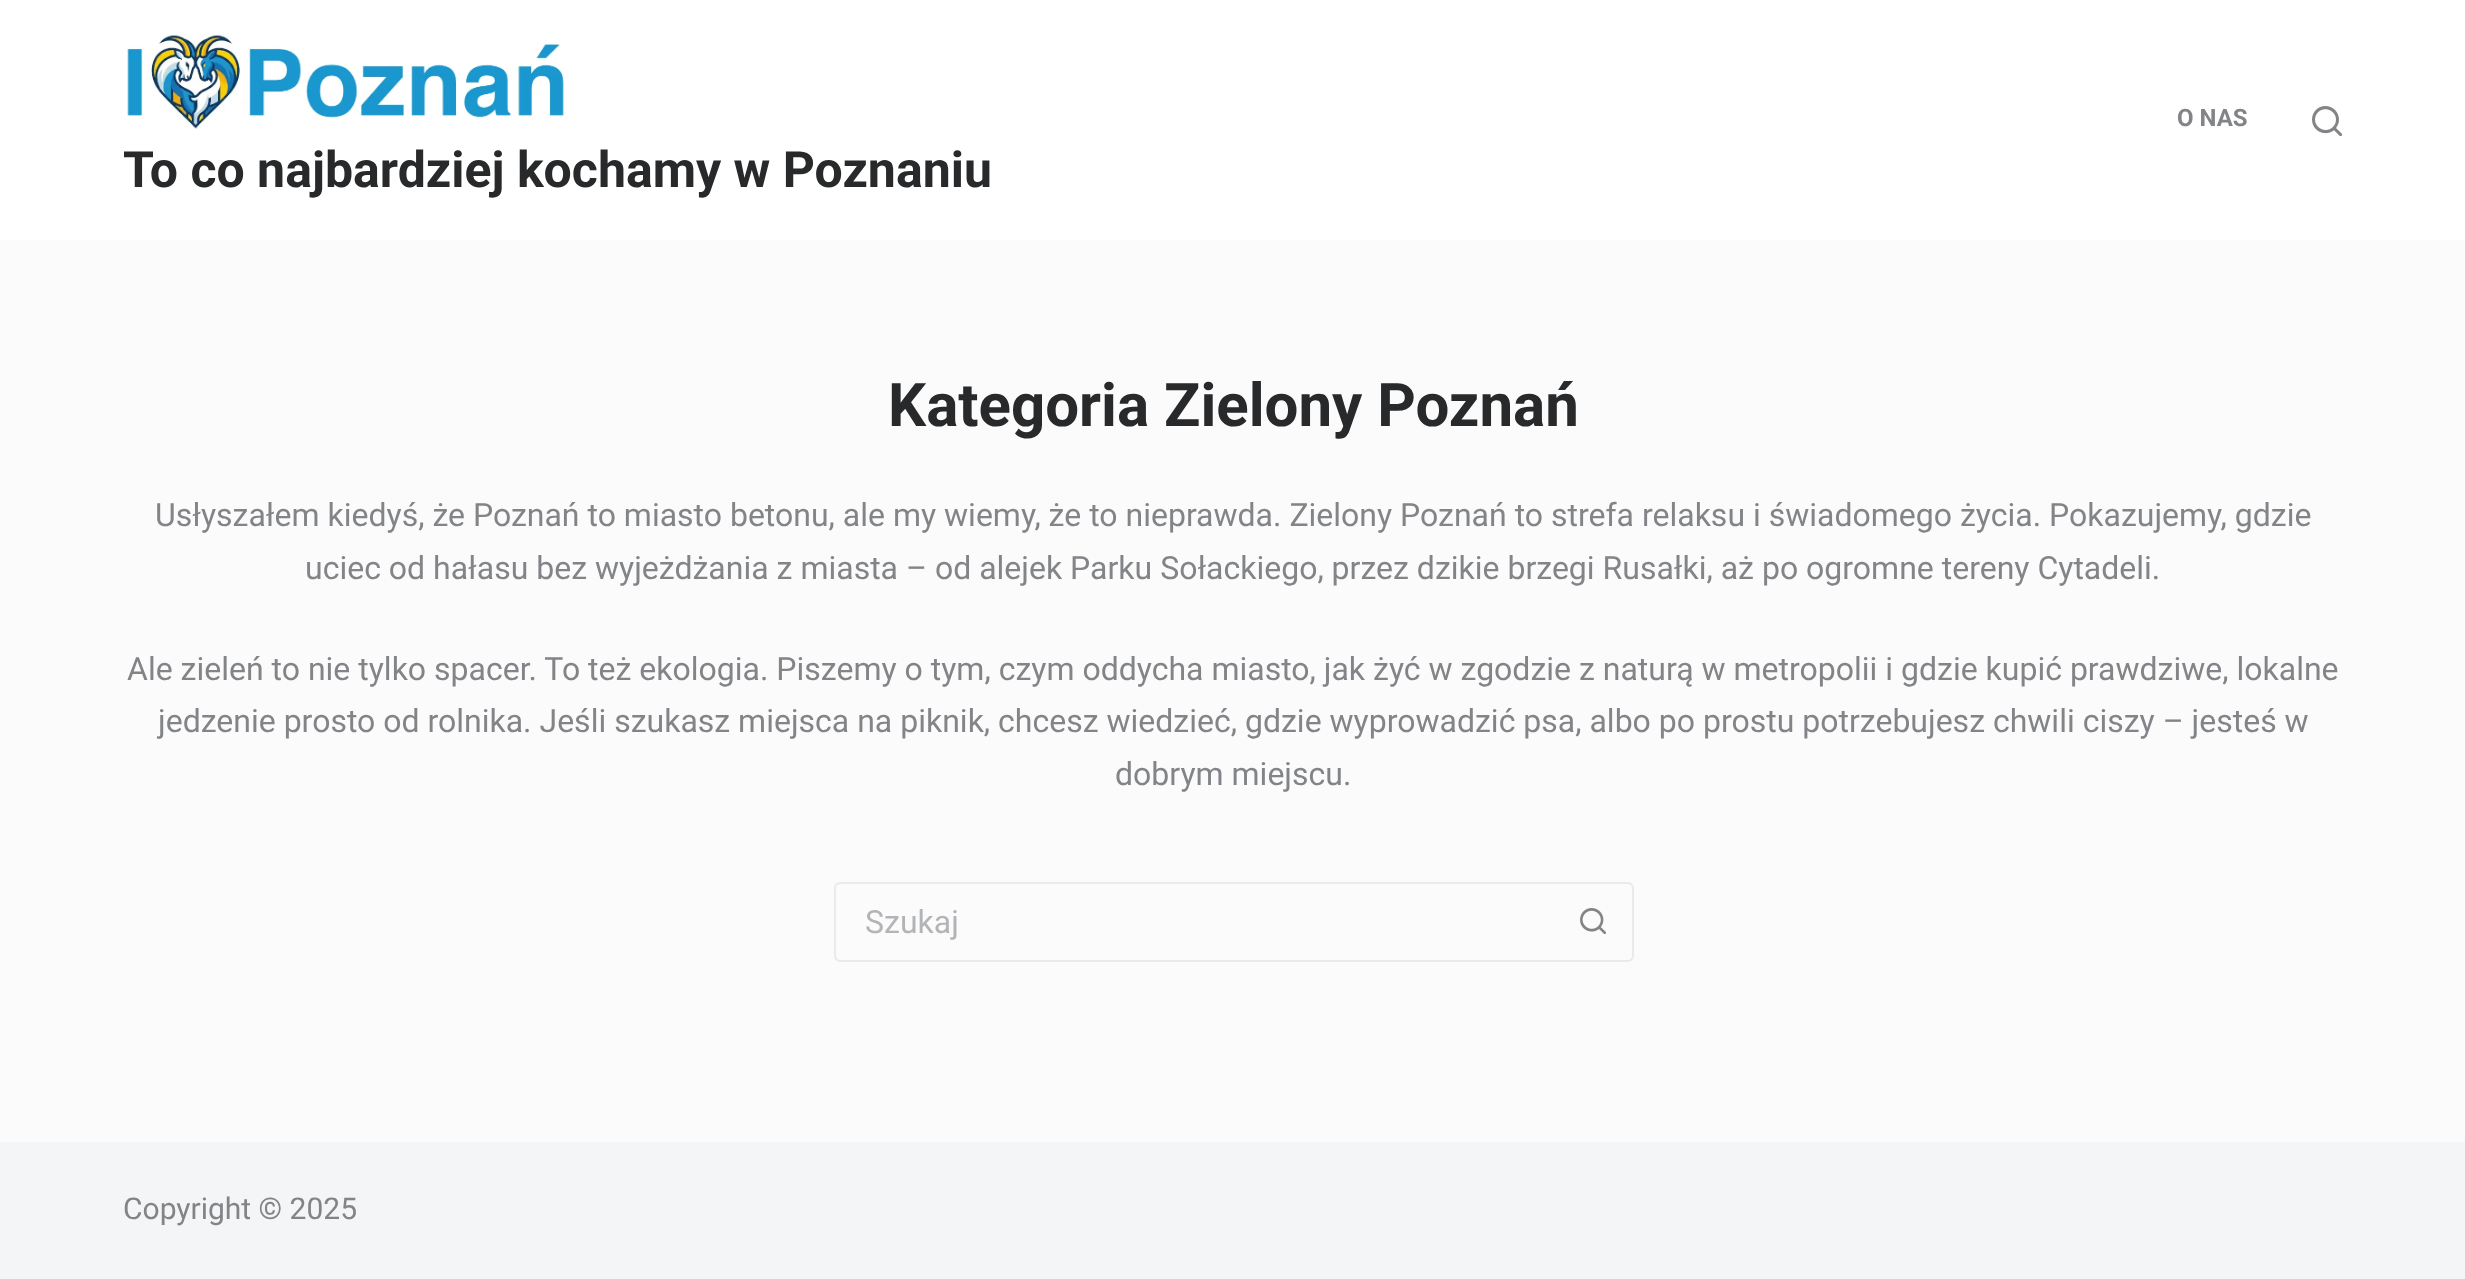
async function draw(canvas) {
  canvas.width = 2465
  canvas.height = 1279
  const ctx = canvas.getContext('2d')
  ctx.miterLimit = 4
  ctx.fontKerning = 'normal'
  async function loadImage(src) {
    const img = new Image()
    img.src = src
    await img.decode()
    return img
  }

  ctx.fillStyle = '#fbfbfc'
  ctx.fillRect(0, 0, 2465, 1279)
  ctx.fillStyle = '#fff'
  ctx.fillRect(0, 0, 2465, 240)
  ctx.font = 'bold 24px Roboto'
  ctx.fillStyle = '#828487'
  ctx.fillText('O NAS', 2177, 126)
  ctx.drawImage(await loadImage('image0.png'), 2312, 106, 30, 30)
  ctx.drawImage(await loadImage('image1.png'), 127, 34, 438, 95)
  ctx.font = 'bold 50px Roboto'
  ctx.fillStyle = '#28292a'
  ctx.fillText('To co najbardziej kochamy w Poznaniu', 123, 187)
  ctx.font = 'bold 60px Roboto'
  ctx.fillText('Kategoria Zielony Poznań', 888, 426)
  ctx.font = '32px Roboto'
  ctx.fillStyle = '#828487'
  ctx.fillText('Usłyszałem kiedyś, że Poznań to miasto betonu, ale my wiemy, że to nieprawda. Zielony Poznań to strefa relaksu i świadomego życia. Pokazujemy, gdzie', 155, 526)
  ctx.fillText('uciec od hałasu bez wyjeżdżania z miasta – od alejek Parku Sołackiego, przez dzikie brzegi Rusałki, aż po ogromne tereny Cytadeli.', 305, 579)
  ctx.fillText('Ale zieleń to nie tylko spacer. To też ekologia. Piszemy o tym, czym oddycha miasto, jak żyć w zgodzie z naturą w metropolii i gdzie kupić prawdziwe, lokalne', 127, 680)
  ctx.fillText('jedzenie prosto od rolnika. Jeśli szukasz miejsca na piknik, chcesz wiedzieć, gdzie wyprowadzić psa, albo po prostu potrzebujesz chwili ciszy – jesteś w', 158, 732)
  ctx.fillText('dobrym miejscu.', 1115, 785)
  ctx.fillStyle = '#e8ebed'
  ctx.beginPath()
  ctx.moveTo(840, 882)
  ctx.lineTo(1554, 882)
  ctx.lineTo(1554, 962)
  ctx.lineTo(840, 962)
  ctx.bezierCurveTo(837, 962, 834, 959, 834, 956)
  ctx.lineTo(834, 888)
  ctx.bezierCurveTo(834, 885, 837, 882, 840, 882)
  ctx.closePath()
  ctx.moveTo(840, 884)
  ctx.lineTo(1554, 884)
  ctx.lineTo(1554, 960)
  ctx.lineTo(840, 960)
  ctx.bezierCurveTo(838, 960, 836, 958, 836, 956)
  ctx.lineTo(836, 888)
  ctx.bezierCurveTo(836, 886, 838, 884, 840, 884)
  ctx.closePath()
  ctx.fill('evenodd')
  ctx.fillStyle = '#b2b4b6'
  ctx.fillText('Szukaj', 865, 933)
  ctx.fillStyle = '#e8ebed'
  ctx.beginPath()
  ctx.moveTo(1554, 882)
  ctx.lineTo(1628, 882)
  ctx.bezierCurveTo(1631, 882, 1634, 885, 1634, 888)
  ctx.lineTo(1634, 956)
  ctx.bezierCurveTo(1634, 959, 1631, 962, 1628, 962)
  ctx.lineTo(1554, 962)
  ctx.closePath()
  ctx.moveTo(1554, 884)
  ctx.lineTo(1628, 884)
  ctx.bezierCurveTo(1630, 884, 1632, 886, 1632, 888)
  ctx.lineTo(1632, 956)
  ctx.bezierCurveTo(1632, 958, 1630, 960, 1628, 960)
  ctx.lineTo(1554, 960)
  ctx.closePath()
  ctx.fill('evenodd')
  ctx.drawImage(await loadImage('image2.png'), 1580, 908, 26, 26)
  ctx.fillStyle = '#f4f5f6'
  ctx.fillRect(0, 1142, 2465, 137)
  ctx.font = '30px Roboto'
  ctx.fillStyle = '#828487'
  ctx.fillText('Copyright © 2025', 123, 1219)
}

draw(document.querySelector('canvas'))
